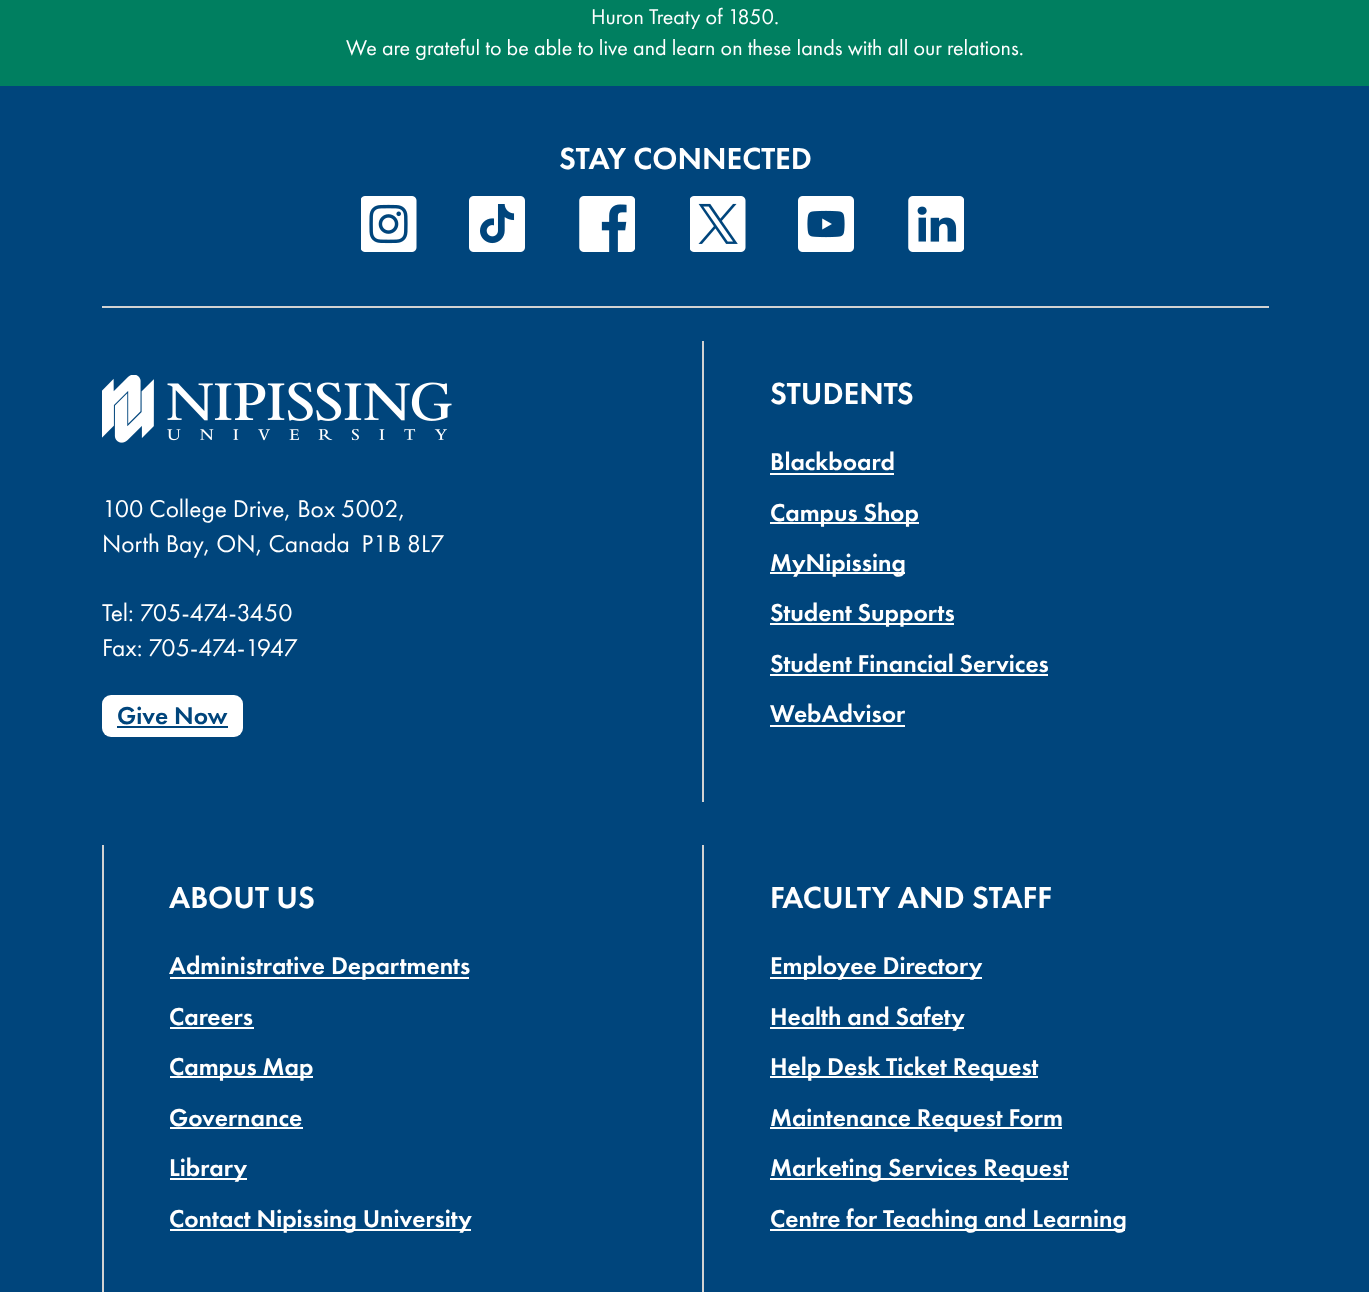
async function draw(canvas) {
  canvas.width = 1369
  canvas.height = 1292
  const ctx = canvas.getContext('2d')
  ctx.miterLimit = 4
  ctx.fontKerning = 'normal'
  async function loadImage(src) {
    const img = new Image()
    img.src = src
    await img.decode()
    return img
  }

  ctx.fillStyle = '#007f60'
  ctx.fillRect(0, 0, 1369, 1292)
  ctx.font = '22.05px Futura PT'
  ctx.fillStyle = '#fff'
  ctx.fillText('Huron Treaty of 1850.', 591, 24)
  ctx.fillText('We are grateful to be able to live and learn on these lands with all our relations.', 346, 55)
  ctx.fillStyle = '#00457c'
  ctx.fillRect(0, 86, 1369, 1206)
  ctx.font = '500 31.5px Futura PT'
  ctx.fillStyle = '#fff'
  ctx.fillText('STAY CONNECTED', 559, 169)
  ctx.drawImage(await loadImage('image0.png'), 361, 196, 56, 56)
  ctx.drawImage(await loadImage('image1.png'), 469, 196, 56, 56)
  ctx.drawImage(await loadImage('image2.png'), 579, 196, 56, 56)
  ctx.drawImage(await loadImage('image3.png'), 690, 196, 56, 56)
  ctx.drawImage(await loadImage('image4.png'), 798, 196, 56, 56)
  ctx.drawImage(await loadImage('image5.png'), 908, 196, 56, 56)
  ctx.fillStyle = '#d2d2d2'
  ctx.fillRect(102, 306, 1167, 2)
  ctx.drawImage(await loadImage('image6.png'), 102, 375, 350, 68)
  ctx.font = '25.25px Futura PT'
  ctx.fillStyle = '#fff'
  ctx.fillText('100 College Drive, Box 5002,', 102, 517)
  ctx.fillText('North Bay, ON, Canada  P1B 8L7', 102, 552)
  ctx.fillText('Tel: 705-474-3450', 102, 621)
  ctx.fillText('Fax: 705-474-1947', 102, 656)
  ctx.beginPath()
  ctx.roundRect(102, 695, 141, 42, 9)
  ctx.fill()
  ctx.font = '500 25.25px Futura PT'
  ctx.fillStyle = '#00457c'
  ctx.fillText('Give Now', 117, 724)
  ctx.fillRect(117, 726, 111, 2)
  ctx.fillStyle = '#d2d2d2'
  ctx.fillRect(702, 341, 2, 461)
  ctx.font = '500 31.5px Futura PT'
  ctx.fillStyle = '#fff'
  ctx.fillText('STUDENTS', 770, 404)
  ctx.font = '500 25.25px Futura PT'
  ctx.fillText('Blackboard', 770, 470)
  ctx.fillRect(770, 473, 124, 2)
  ctx.fillRect(770, 522, 149, 2)
  ctx.fillText('Campus Shop', 770, 521)
  ctx.fillRect(770, 572, 135, 2)
  ctx.fillText('MyNipissing', 770, 571)
  ctx.fillRect(770, 623, 184, 2)
  ctx.fillText('Student Supports', 770, 621)
  ctx.fillText('Student Financial Services', 770, 672)
  ctx.fillRect(770, 674, 278, 2)
  ctx.fillText('WebAdvisor', 770, 722)
  ctx.fillRect(770, 725, 135, 2)
  ctx.fillStyle = '#d2d2d2'
  ctx.fillRect(102, 845, 2, 447)
  ctx.font = '500 31.5px Futura PT'
  ctx.fillStyle = '#fff'
  ctx.fillText('ABOUT US', 169, 908)
  ctx.fillRect(170, 977, 299, 2)
  ctx.font = '500 25.25px Futura PT'
  ctx.fillText('Administrative Departments', 169, 974)
  ctx.fillText('Careers', 169, 1025)
  ctx.fillRect(170, 1027, 84, 2)
  ctx.fillRect(170, 1076, 143, 2)
  ctx.fillText('Campus Map', 169, 1075)
  ctx.fillText('Governance', 169, 1126)
  ctx.fillRect(170, 1127, 133, 2)
  ctx.fillRect(170, 1178, 77, 2)
  ctx.fillText('Library', 169, 1176)
  ctx.fillRect(170, 1229, 301, 2)
  ctx.fillText('Contact Nipissing University', 169, 1227)
  ctx.fillStyle = '#d2d2d2'
  ctx.fillRect(702, 845, 2, 447)
  ctx.font = '500 31.5px Futura PT'
  ctx.fillStyle = '#fff'
  ctx.fillText('FACULTY AND STAFF', 770, 908)
  ctx.fillRect(770, 977, 212, 2)
  ctx.font = '500 25.25px Futura PT'
  ctx.fillText('Employee Directory', 770, 974)
  ctx.fillRect(770, 1027, 194, 2)
  ctx.fillText('Health and Safety', 770, 1025)
  ctx.fillRect(770, 1076, 268, 2)
  ctx.fillText('Help Desk Ticket Request', 770, 1075)
  ctx.fillRect(770, 1127, 292, 2)
  ctx.fillText('Maintenance Request Form', 770, 1126)
  ctx.fillRect(770, 1178, 298, 2)
  ctx.fillText('Marketing Services Request', 770, 1176)
  ctx.fillRect(770, 1229, 355, 2)
  ctx.fillText('Centre for Teaching and Learning', 770, 1227)
}

draw(document.querySelector('canvas'))
